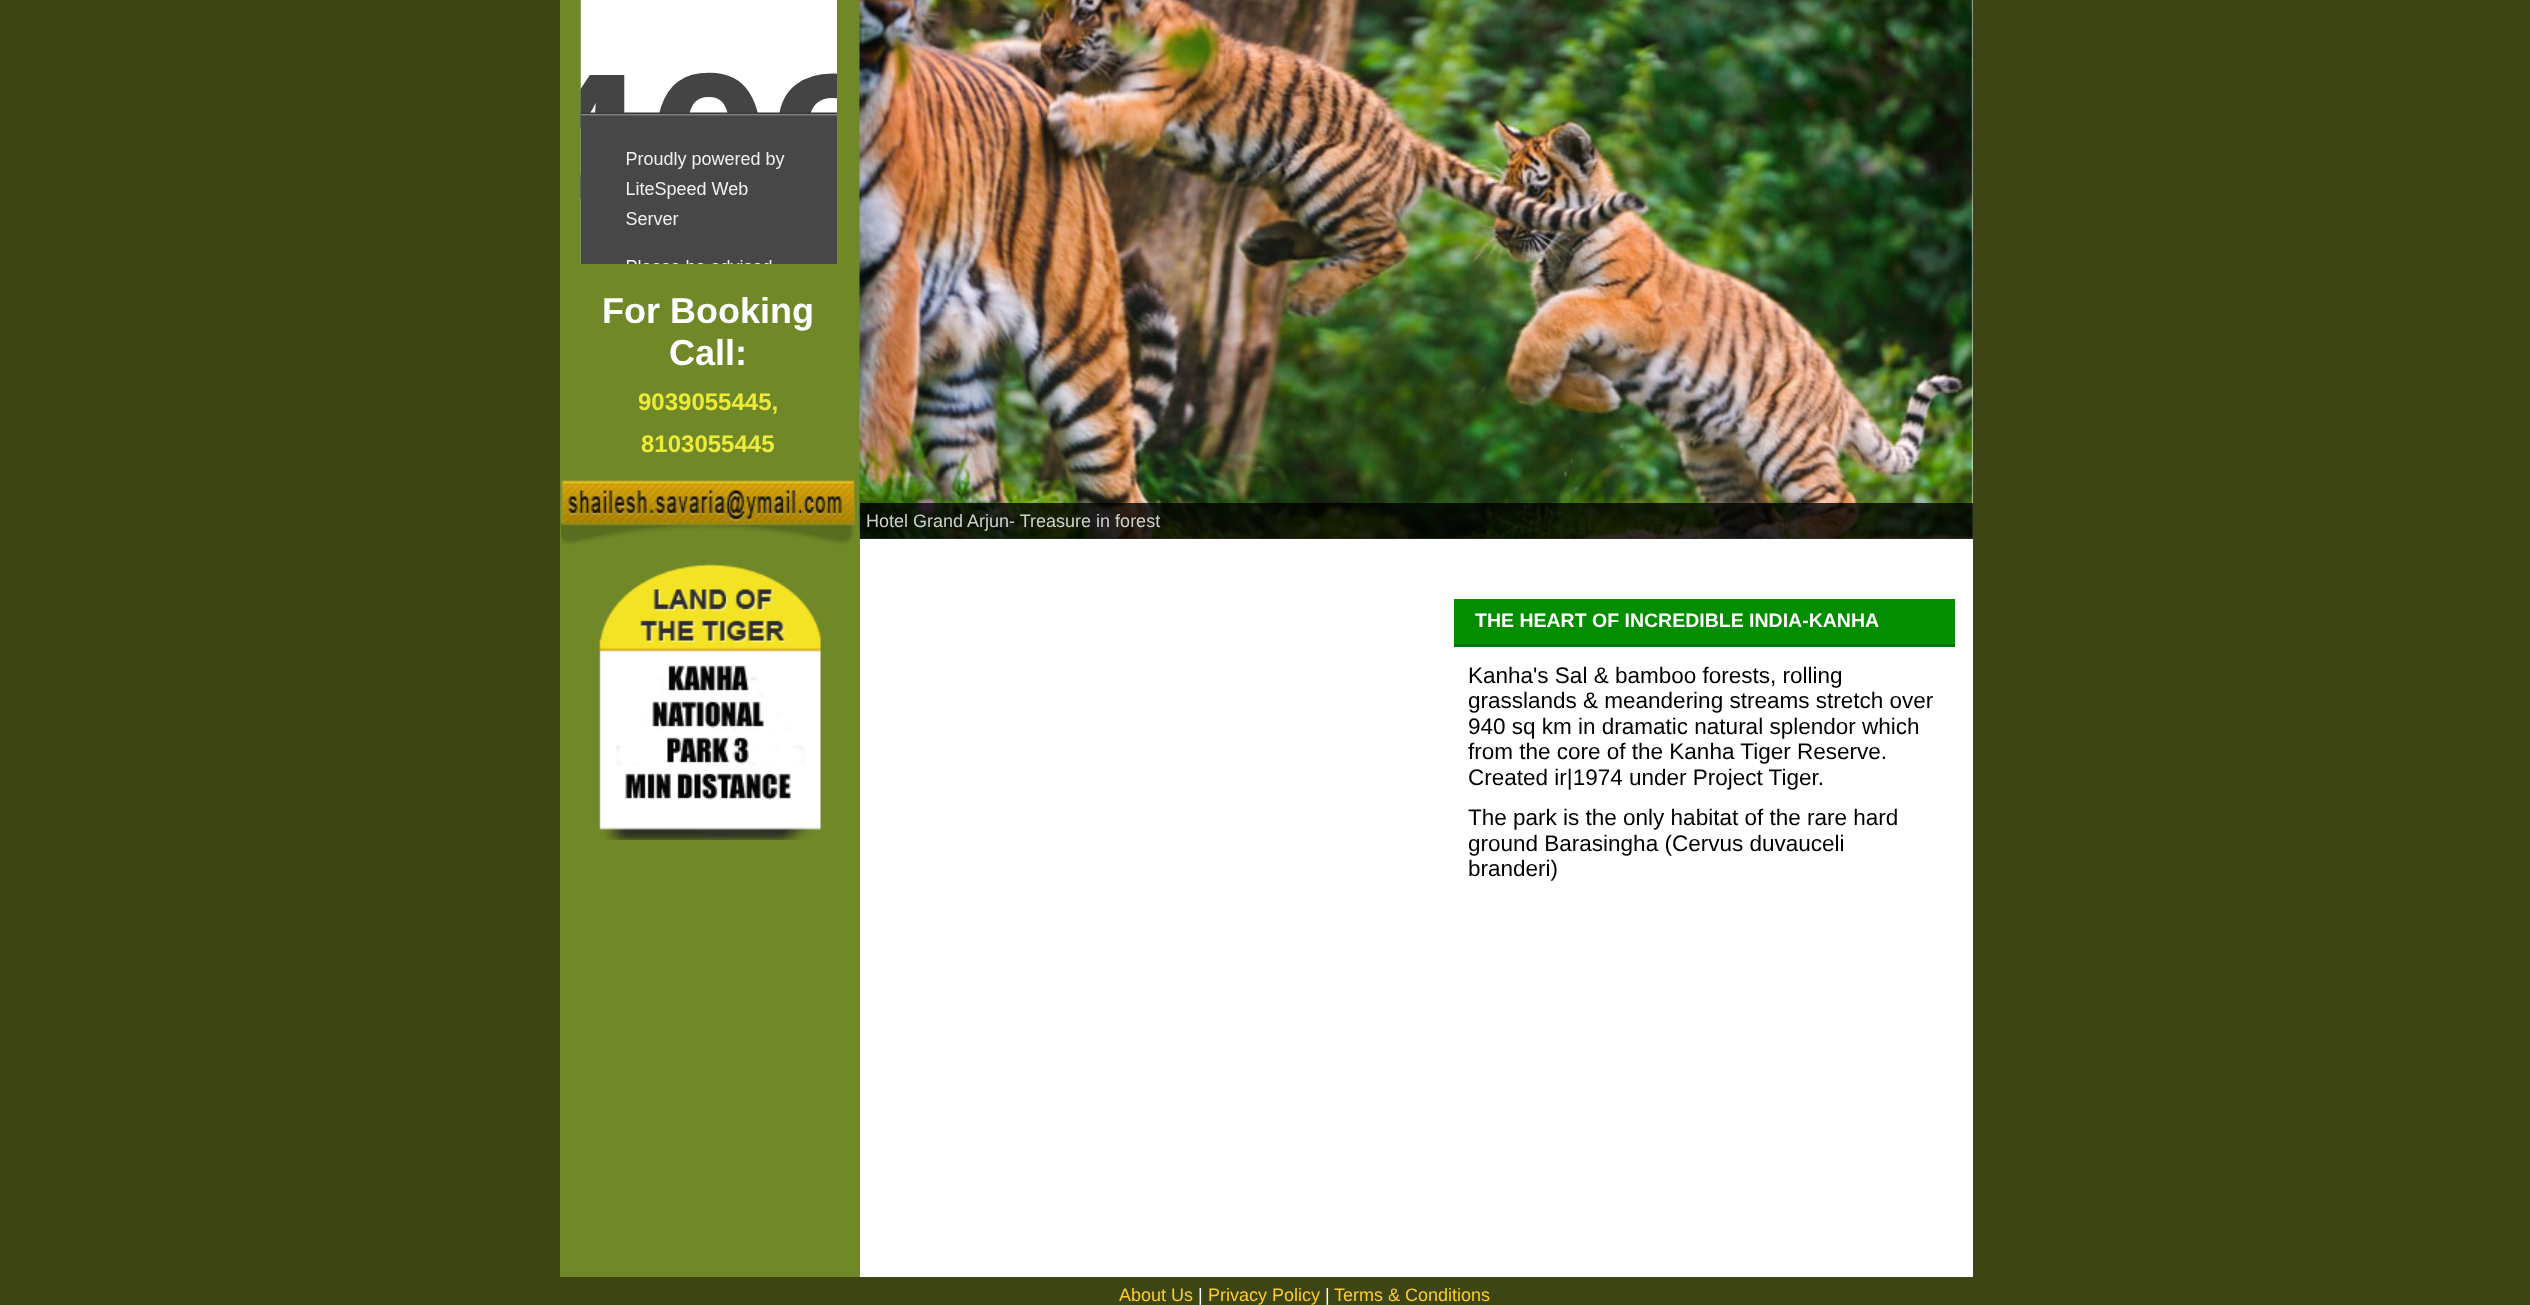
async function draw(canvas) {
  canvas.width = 2530
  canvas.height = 1305
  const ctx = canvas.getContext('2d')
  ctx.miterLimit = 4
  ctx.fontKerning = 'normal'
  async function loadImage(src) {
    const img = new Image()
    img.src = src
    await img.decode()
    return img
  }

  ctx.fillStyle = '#3c4513'
  ctx.fillRect(0, 0, 2530, 1305)
  ctx.fillStyle = '#708828'
  ctx.fillRect(560, 0, 300, 1277)
  ctx.drawImage(await loadImage('image0.png'), 580, 0, 257, 264)
  ctx.font = 'bold 36px Liberation Sans'
  ctx.fillStyle = '#fff'
  ctx.fillText('For Booking', 602, 323)
  ctx.fillText('Call:', 669, 365)
  ctx.font = 'bold 24px Liberation Sans'
  ctx.fillStyle = '#edeb3a'
  ctx.fillText('9039055445,', 638, 410)
  ctx.fillText('8103055445', 641, 452)
  ctx.drawImage(await loadImage('image1.png'), 561, 480, 294, 65)
  ctx.drawImage(await loadImage('image2.png'), 598, 564, 223, 276)
  ctx.fillStyle = '#fff'
  ctx.fillRect(860, 0, 1113, 1277)
  ctx.drawImage(await loadImage('image3.png'), 859, 0, 1114, 539)
  ctx.fillStyle = '#000000cc'
  ctx.fillRect(860, 503, 1113, 36)
  ctx.font = '18px Liberation Sans'
  ctx.fillStyle = '#d0d1ce'
  ctx.fillText('Hotel Grand Arjun- Treasure in forest', 866, 527)
  ctx.fillStyle = '#038d01'
  ctx.fillRect(1454, 599, 501, 45)
  ctx.fillStyle = '#047702'
  ctx.fillRect(1454, 644, 501, 3)
  ctx.font = 'bold 19.5px Liberation Sans'
  ctx.fillStyle = '#fff'
  ctx.fillText('THE HEART OF INCREDIBLE INDIA-KANHA', 1475, 627)
  ctx.font = '22.5px Liberation Sans'
  ctx.fillStyle = '#000'
  ctx.fillText('Kanha\'s Sal & bamboo forests, rolling', 1468, 683)
  ctx.fillText('grasslands & meandering streams stretch over', 1468, 708)
  ctx.fillText('940 sq km in dramatic natural splendor which', 1468, 734)
  ctx.fillText('from the core of the Kanha Tiger Reserve.', 1468, 759)
  ctx.fillText('Created ir|1974 under Project Tiger.', 1468, 785)
  ctx.fillText('The park is the only habitat of the rare hard', 1468, 825)
  ctx.fillText('ground Barasingha (Cervus duvauceli', 1468, 851)
  ctx.fillText('branderi)', 1468, 876)
  ctx.font = '18px Liberation Sans'
  ctx.fillStyle = '#ffcc2a'
  ctx.fillText('About Us', 1119, 1301)
  ctx.fillStyle = '#fff'
  ctx.fillText('|', 1198, 1301)
  ctx.fillStyle = '#ffcc2a'
  ctx.fillText('Privacy Policy', 1208, 1301)
  ctx.fillStyle = '#fff'
  ctx.fillText('|', 1325, 1301)
  ctx.fillStyle = '#ffcc2a'
  ctx.fillText('Terms & Conditions', 1334, 1301)
}

draw(document.querySelector('canvas'))
